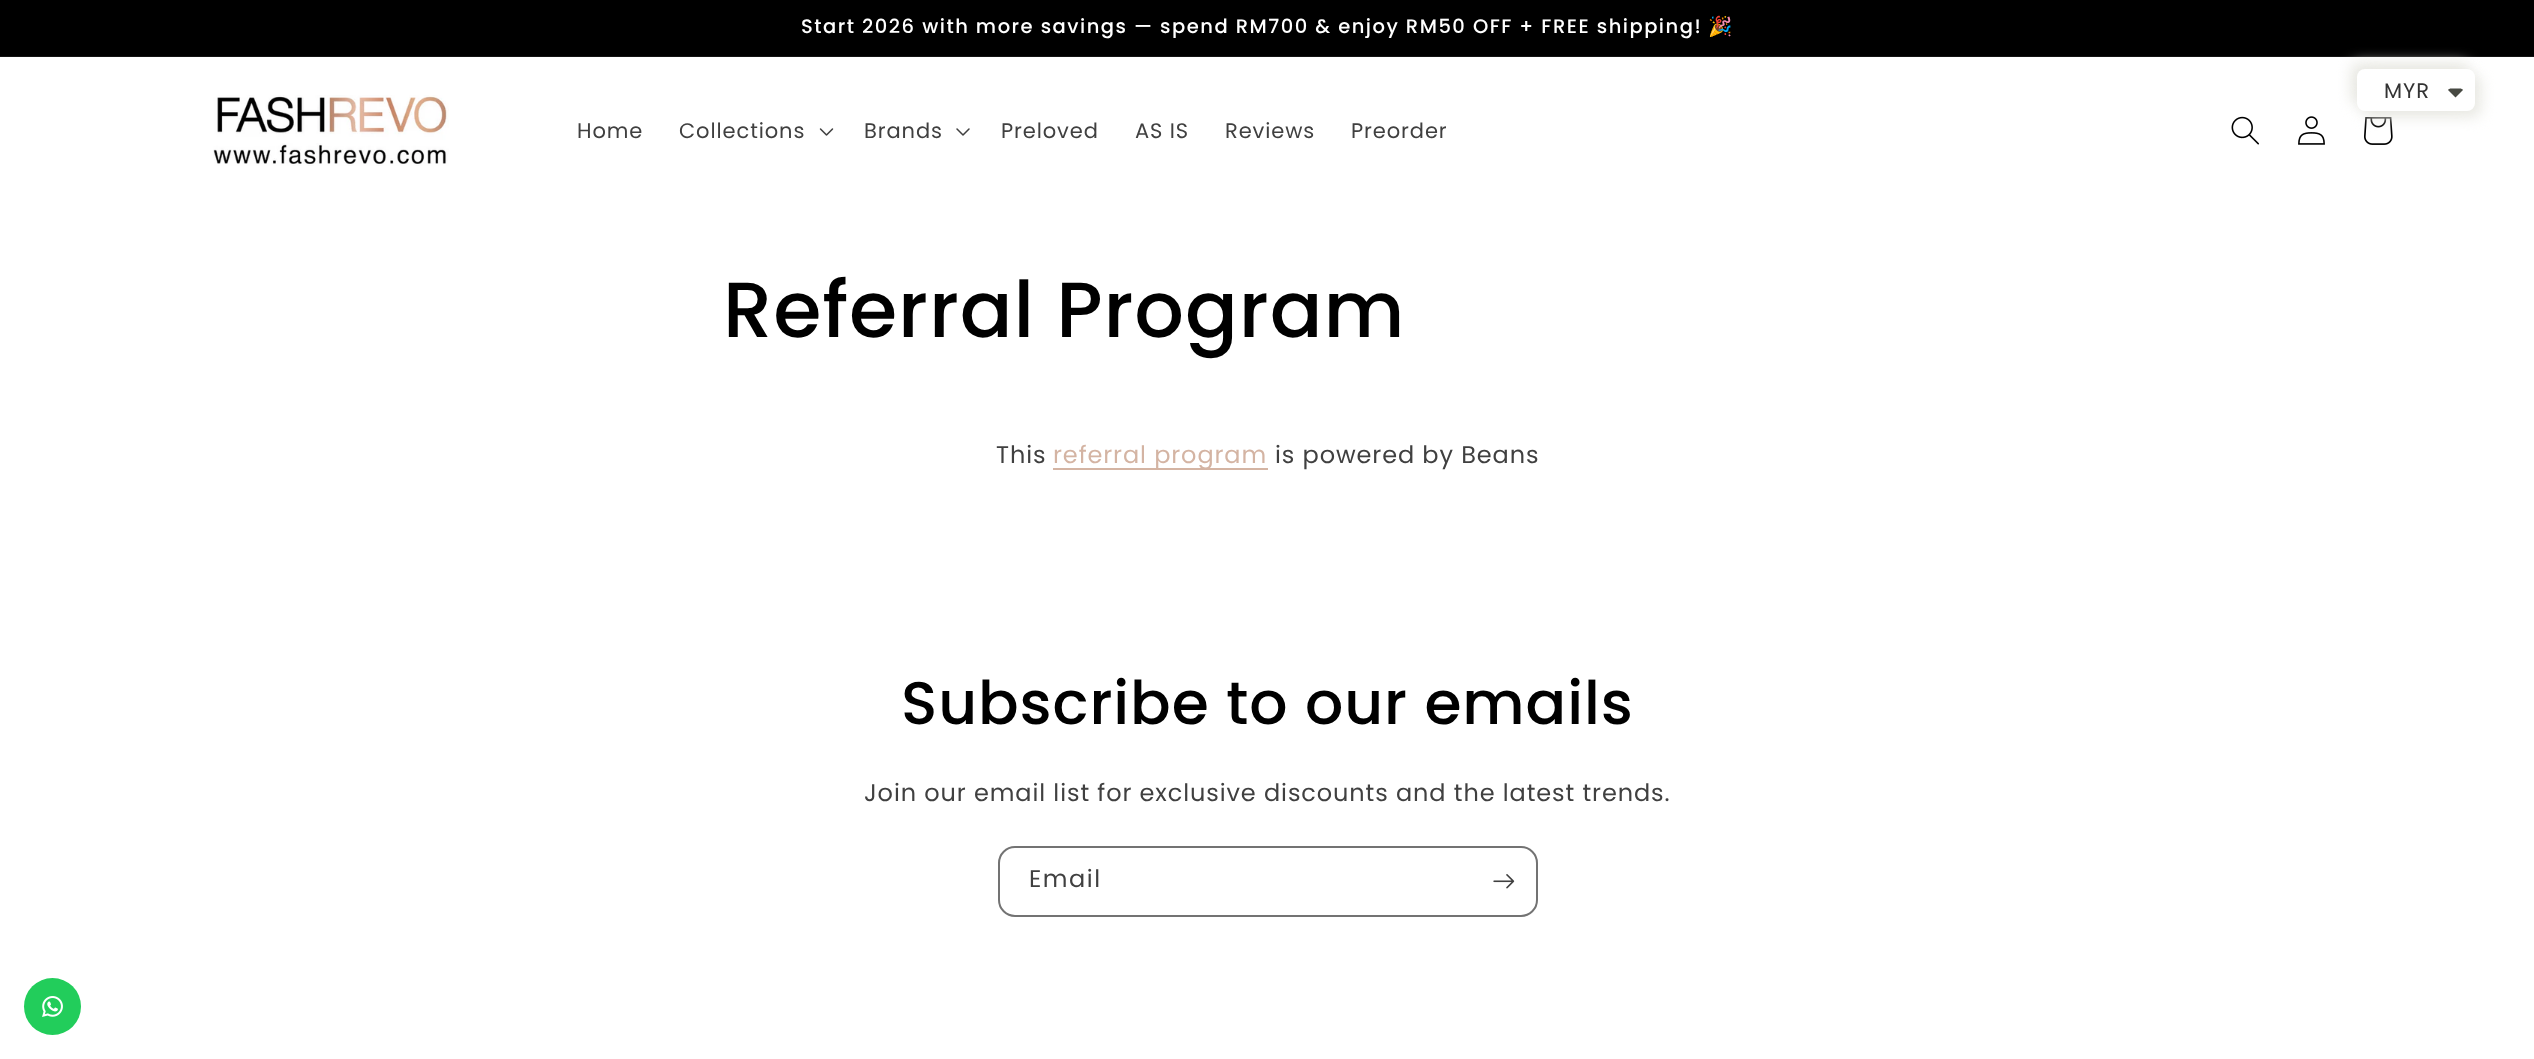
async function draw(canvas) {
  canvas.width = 2534
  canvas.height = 1059
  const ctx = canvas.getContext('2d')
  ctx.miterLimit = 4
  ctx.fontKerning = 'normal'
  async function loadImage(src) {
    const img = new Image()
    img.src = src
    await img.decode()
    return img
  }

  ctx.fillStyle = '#fff'
  ctx.fillRect(0, 0, 2534, 1059)
  ctx.fillStyle = '#000'
  ctx.fillRect(0, 0, 2534, 56)
  ctx.fillStyle = '#141414'
  ctx.fillRect(0, 56, 2534, 1)
  ctx.letterSpacing = '1.5px'
  ctx.font = '500 19.5px Poppins'
  ctx.fillStyle = '#fff'
  ctx.fillText('Start 2026 with more savings — spend RM700 & enjoy RM50 OFF + FREE shipping!', 801, 33)
  ctx.font = '19.5px Noto Color Emoji'
  ctx.fillText('🎉', 1708, 33)
  ctx.drawImage(await loadImage('image5.png'), 2364, 117, 29, 28)
  ctx.fillStyle = '#e8e8e2'
  ctx.filter = 'blur(7px)'
  ctx.beginPath()
  ctx.roundRect(2351, 63, 118, 42, 8)
  ctx.fill()
  ctx.filter = 'none'
  ctx.filter = 'blur(7px)'
  ctx.beginPath()
  ctx.roundRect(2363, 75, 118, 42, 8)
  ctx.fill()
  ctx.filter = 'none'
  ctx.fillStyle = '#fff'
  ctx.beginPath()
  ctx.roundRect(2357, 69, 118, 42, 8)
  ctx.fill()
  ctx.letterSpacing = '0.9px'
  ctx.font = '21px Poppins'
  ctx.fillStyle = '#333'
  ctx.fillText('MYR', 2384, 98)
  ctx.fillStyle = '#474942'
  ctx.beginPath()
  ctx.moveTo(2451, 88.5)
  ctx.bezierCurveTo(2450, 88.5, 2448.5, 89, 2448, 90)
  ctx.lineTo(2455.5, 97.5)
  ctx.lineTo(2463, 90)
  ctx.bezierCurveTo(2462.5, 89, 2461, 88.5, 2460, 88.5)
  ctx.closePath()
  ctx.fill()
  ctx.drawImage(await loadImage('image0.png'), 213, 95, 236, 71)
  ctx.fillStyle = '#404040'
  ctx.fillText('Home', 577, 138)
  ctx.fillText('Collections', 679, 138)
  ctx.drawImage(await loadImage('image1.png'), 819, 128, 15, 8)
  ctx.fillText('Brands', 864, 138)
  ctx.drawImage(await loadImage('image2.png'), 956, 128, 14, 8)
  ctx.fillText('Preloved', 1001, 138)
  ctx.fillText('AS IS', 1135, 138)
  ctx.fillText('Reviews', 1225, 138)
  ctx.fillText('Preorder', 1351, 138)
  ctx.drawImage(await loadImage('image3.png'), 2231, 116, 28, 29)
  ctx.drawImage(await loadImage('image4.png'), 2298, 116, 27, 29)
  ctx.font = '500 78px Poppins'
  ctx.fillStyle = '#000'
  ctx.fillText('Referral Program', 723, 337)
  ctx.font = '24px Poppins'
  ctx.fillStyle = '#404040'
  ctx.fillText('This', 996, 463)
  ctx.fillStyle = '#d4b4a3'
  ctx.fillRect(1053, 468, 215, 2)
  ctx.fillText('referral program', 1053, 463)
  ctx.fillStyle = '#404040'
  ctx.fillText('is powered by Beans', 1275, 463)
  ctx.font = '500 60px Poppins'
  ctx.fillStyle = '#000'
  ctx.fillText('Subscribe to our emails', 901, 724)
  ctx.font = '24px Poppins'
  ctx.fillStyle = '#404040'
  ctx.fillText('Join our email list for exclusive discounts and the latest trends.', 864, 801)
  ctx.beginPath()
  ctx.roundRect(999, 847, 538, 69, 16)
  ctx.strokeStyle = '#737373'
  ctx.lineWidth = 2
  ctx.stroke()
  ctx.letterSpacing = '1.5px'
  ctx.fillText('Email', 1029, 887)
  ctx.drawImage(await loadImage('image6.png'), 1493, 874, 22, 15)
  ctx.fillStyle = '#22cd5b'
  ctx.beginPath()
  ctx.arc(52.5, 1006.5, 28.5, 0, 2 * Math.PI)
  ctx.fill()
  ctx.drawImage(await loadImage('image7.png'), 42, 996, 21, 21)
}

draw(document.querySelector('canvas'))
